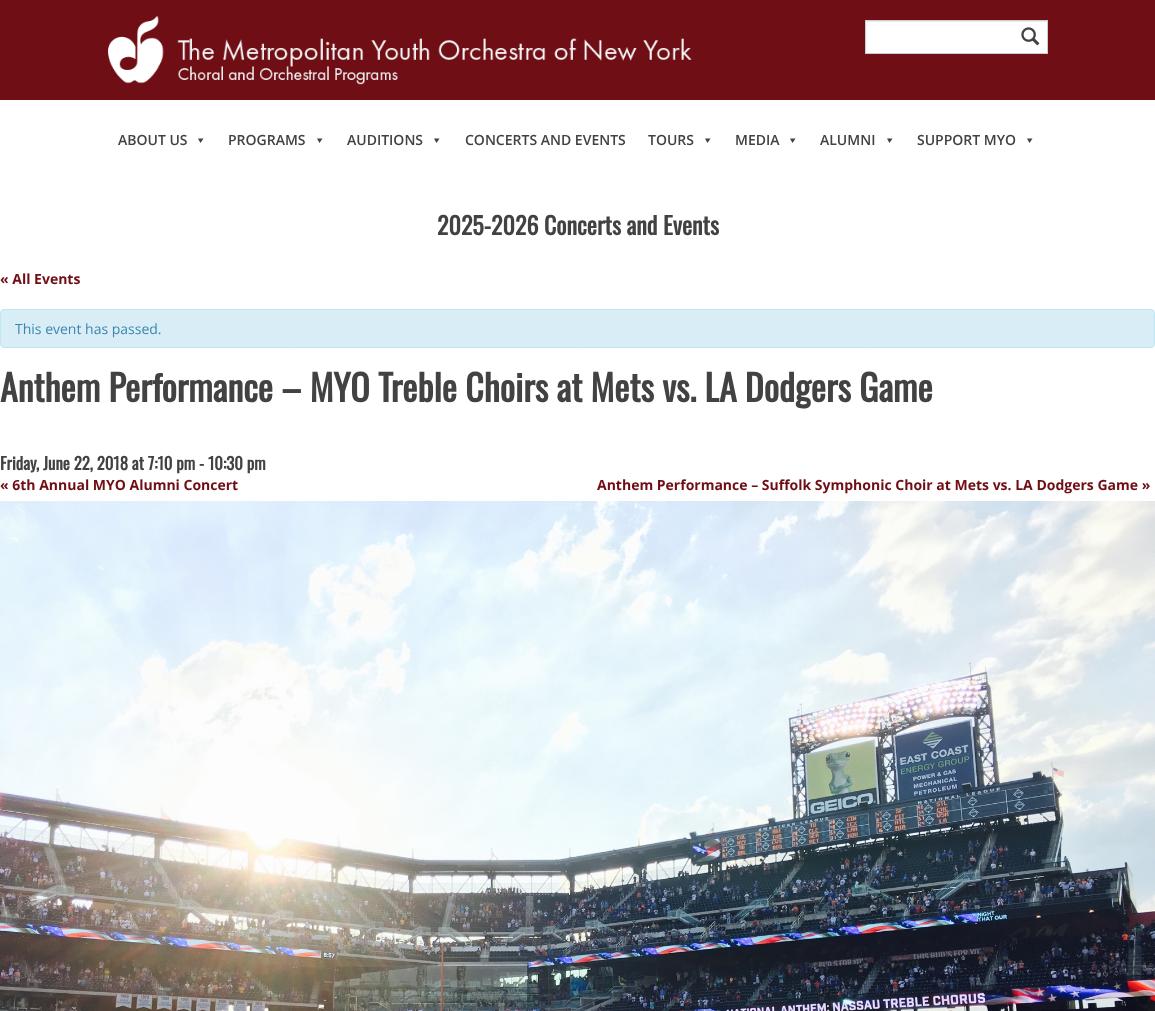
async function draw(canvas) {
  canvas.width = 1155
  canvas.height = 1011
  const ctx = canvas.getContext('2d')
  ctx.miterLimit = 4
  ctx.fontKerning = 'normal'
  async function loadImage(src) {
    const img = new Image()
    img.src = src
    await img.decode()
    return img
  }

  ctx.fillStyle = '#fff'
  ctx.fillRect(0, 0, 1155, 1011)
  ctx.fillStyle = '#6f0e14'
  ctx.fillRect(0, 0, 1155, 100)
  ctx.drawImage(await loadImage('image0.png'), 108, 16, 584, 69)
  ctx.fillStyle = '#fff'
  ctx.fillRect(866, 22, 181, 31)
  ctx.fillStyle = '#ececec'
  ctx.fillRect(866, 21, 181, 1)
  ctx.strokeStyle = '#ccc'
  ctx.strokeRect(865.5, 20.5, 182, 33)
  ctx.drawImage(await loadImage('image1.png'), 1021, 27, 19, 19)
  ctx.font = '600 14px Open Sans'
  ctx.fillStyle = '#424242'
  ctx.fillText('ABOUT US', 118, 145)
  ctx.beginPath()
  ctx.moveTo(203.5, 138.5)
  ctx.lineTo(200.5, 143)
  ctx.lineTo(198, 138.5)
  ctx.closePath()
  ctx.fill()
  ctx.fillText('PROGRAMS', 228, 145)
  ctx.beginPath()
  ctx.moveTo(322.5, 138.5)
  ctx.lineTo(319.5, 143)
  ctx.lineTo(317, 138.5)
  ctx.closePath()
  ctx.fill()
  ctx.fillText('AUDITIONS', 347, 145)
  ctx.beginPath()
  ctx.moveTo(439.5, 138.5)
  ctx.lineTo(436.5, 143)
  ctx.lineTo(434, 138.5)
  ctx.closePath()
  ctx.fill()
  ctx.fillText('CONCERTS AND EVENTS', 465, 145)
  ctx.fillText('TOURS', 648, 145)
  ctx.beginPath()
  ctx.moveTo(710.5, 138.5)
  ctx.lineTo(707.5, 143)
  ctx.lineTo(705, 138.5)
  ctx.closePath()
  ctx.fill()
  ctx.fillText('MEDIA', 735, 145)
  ctx.beginPath()
  ctx.moveTo(795.5, 138.5)
  ctx.lineTo(792.5, 143)
  ctx.lineTo(790, 138.5)
  ctx.closePath()
  ctx.fill()
  ctx.fillText('ALUMNI', 820, 145)
  ctx.beginPath()
  ctx.moveTo(892.5, 138.5)
  ctx.lineTo(889.5, 143)
  ctx.lineTo(887, 138.5)
  ctx.closePath()
  ctx.fill()
  ctx.fillText('SUPPORT MYO', 917, 145)
  ctx.beginPath()
  ctx.moveTo(1032.5, 138.5)
  ctx.lineTo(1029.5, 143)
  ctx.lineTo(1027, 138.5)
  ctx.closePath()
  ctx.fill()
  ctx.font = 'bold 24px Oswald'
  ctx.fillText('2025-2026 Concerts and Events', 437, 235)
  ctx.font = 'bold 14px Open Sans'
  ctx.fillStyle = '#6f0e14'
  ctx.fillText('« All Events', 0, 284)
  ctx.fillStyle = '#d9edf7'
  ctx.beginPath()
  ctx.roundRect(0.5, 309.5, 1154, 38, 3.5)
  ctx.fill()
  ctx.strokeStyle = '#bce8f1'
  ctx.stroke()
  ctx.font = '14px Open Sans'
  ctx.fillStyle = '#3a87ad'
  ctx.fillText('This event has passed.', 15, 334)
  ctx.font = 'bold 36px Oswald'
  ctx.fillStyle = '#424242'
  ctx.fillText('Anthem Performance – MYO Treble Choirs at Mets vs. LA Dodgers Game', 0, 402)
  ctx.font = 'bold 16.75px Oswald'
  ctx.fillText('Friday, June 22, 2018 at 7:10 pm - 10:30 pm', 0, 470)
  ctx.font = 'bold 14px Open Sans'
  ctx.fillStyle = '#6f0e14'
  ctx.fillText('« 6th Annual MYO Alumni Concert', 0, 490)
  ctx.fillText('Anthem Performance – Suffolk Symphonic Choir at Mets vs. LA Dodgers Game »', 597, 490)
  ctx.drawImage(await loadImage('image2.png'), 0, 501, 1155, 510)
}

draw(document.querySelector('canvas'))
